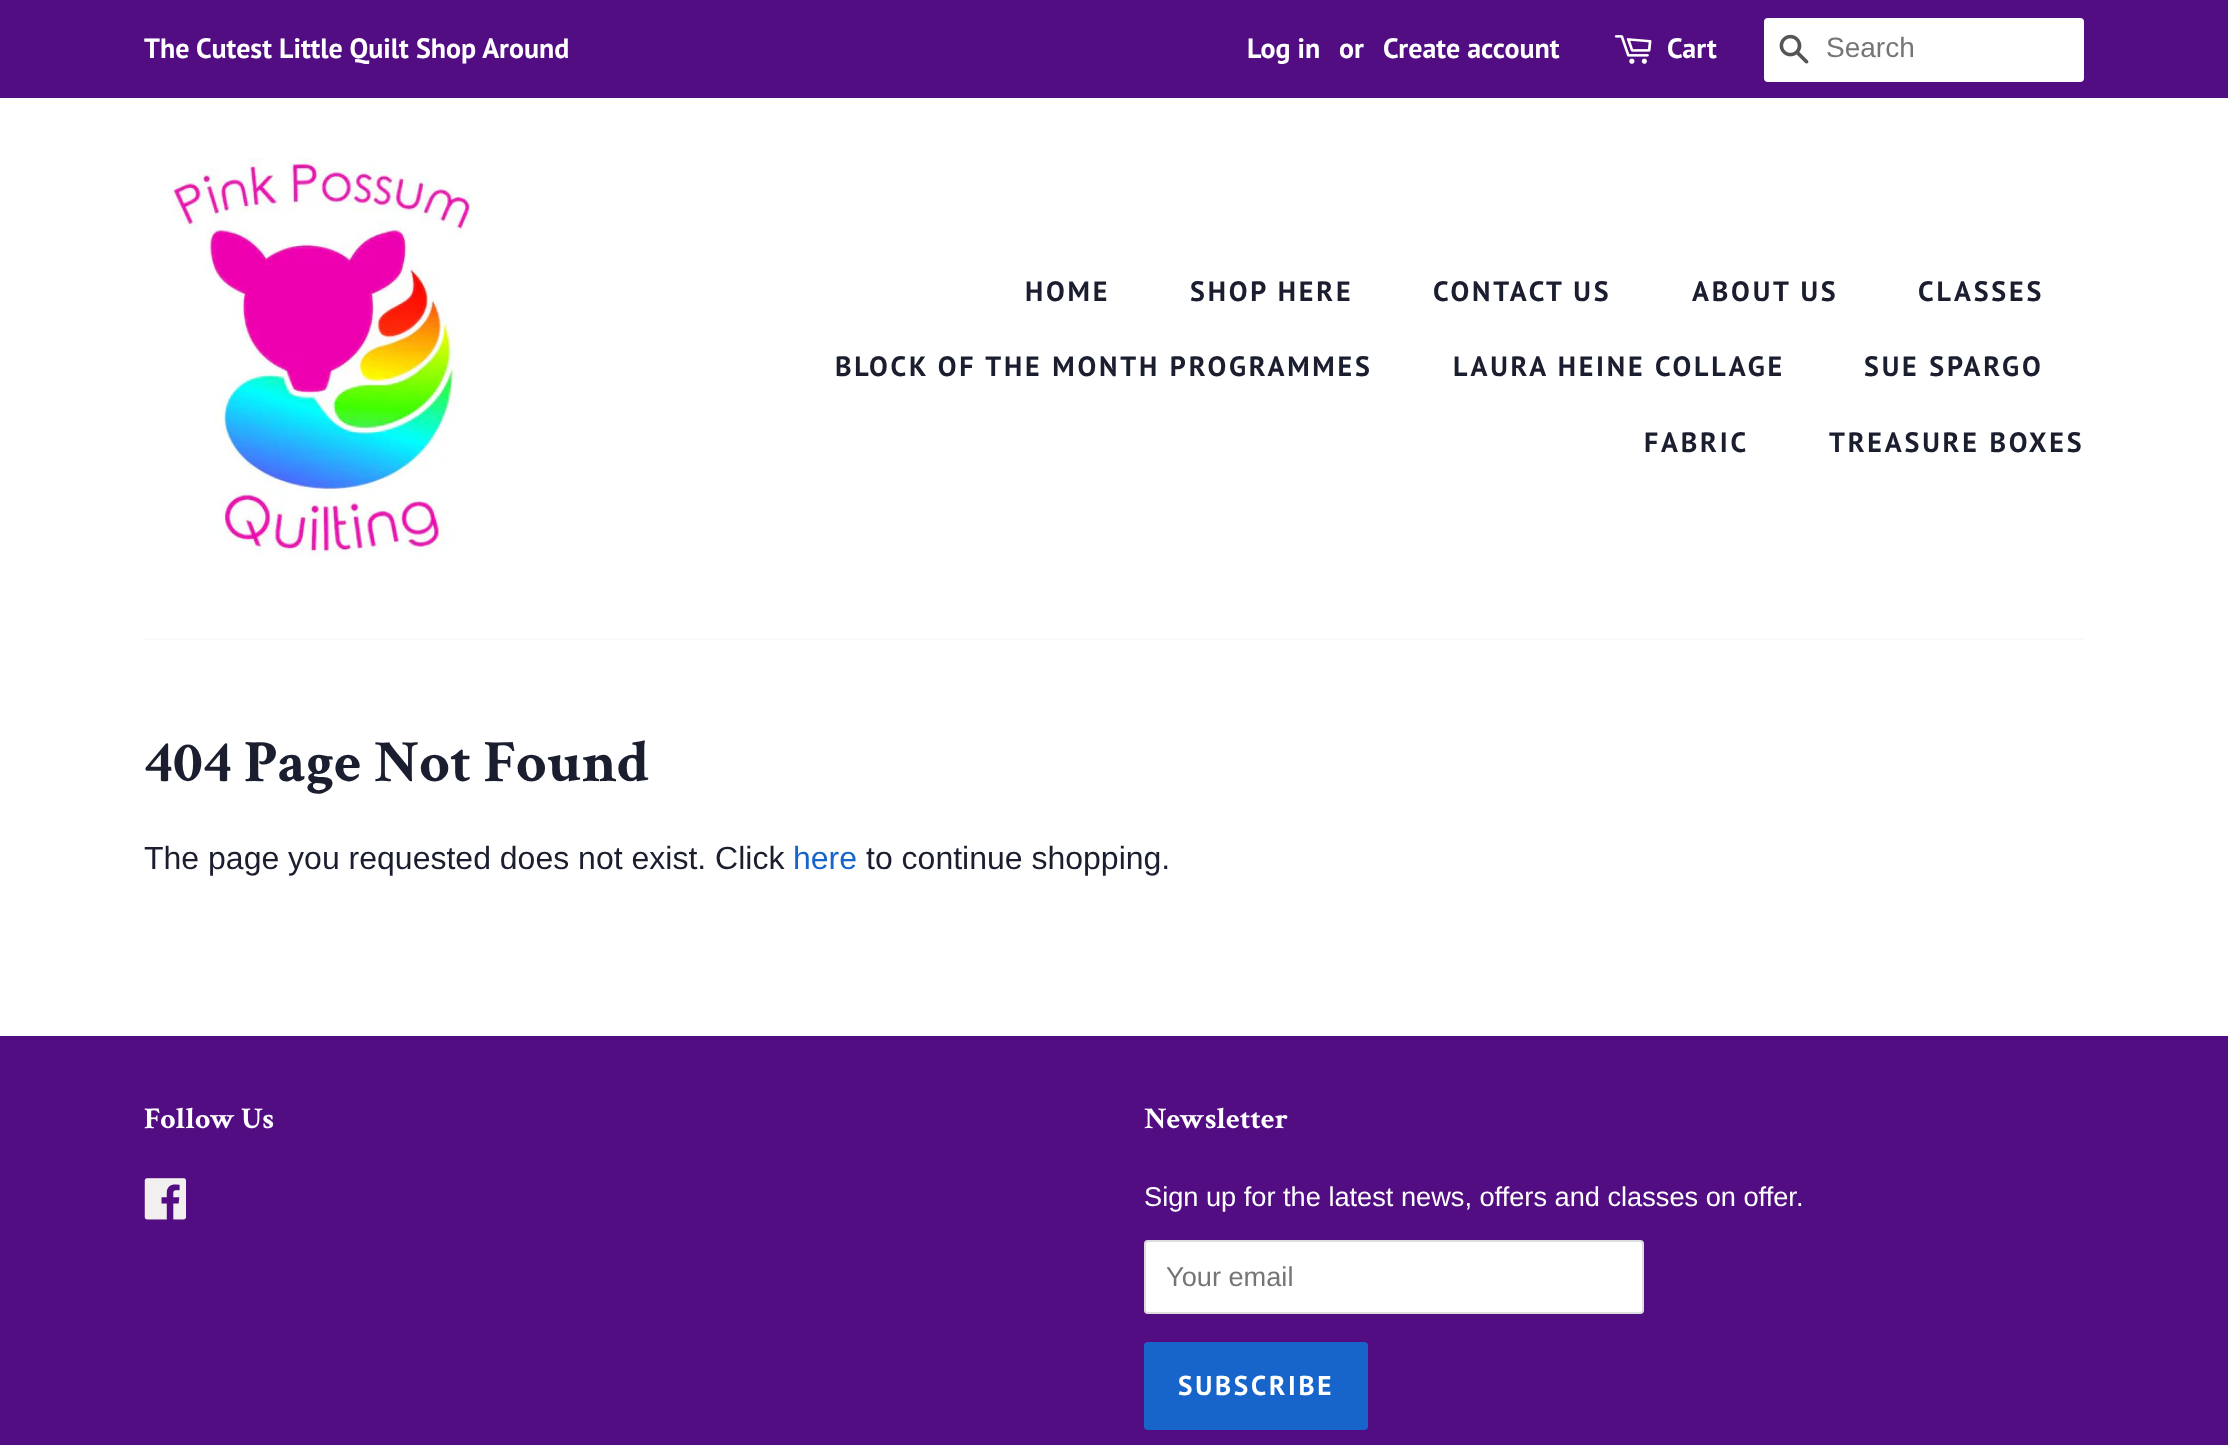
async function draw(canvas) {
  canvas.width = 2228
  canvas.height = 1445
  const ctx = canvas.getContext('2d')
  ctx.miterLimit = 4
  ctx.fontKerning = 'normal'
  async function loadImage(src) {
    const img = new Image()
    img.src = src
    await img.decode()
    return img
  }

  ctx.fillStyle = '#fff'
  ctx.fillRect(0, 0, 2228, 1445)
  ctx.fillStyle = '#520d82'
  ctx.fillRect(0, 0, 2228, 98)
  ctx.font = 'bold 28px PT Sans'
  ctx.fillStyle = '#fff'
  ctx.fillText('The Cutest Little Quilt Shop Around', 144, 58)
  ctx.fillText('Log in', 1247, 58)
  ctx.fillText('or', 1339, 58)
  ctx.fillText('Create account', 1383, 58)
  ctx.drawImage(await loadImage('image0.png'), 1614, 35, 38, 29)
  ctx.fillText('Cart', 1667, 58)
  ctx.beginPath()
  ctx.roundRect(1764, 18, 320, 64, 4)
  ctx.fill()
  ctx.drawImage(await loadImage('image1.png'), 1779, 34, 30, 30)
  ctx.font = '28px Liberation Sans'
  ctx.fillStyle = '#757575'
  ctx.fillText('Search', 1826, 57)
  ctx.fillStyle = '#faf9f7'
  ctx.fillRect(144, 638, 1940, 2)
  ctx.drawImage(await loadImage('image2.png'), 167, 158, 306, 399)
  ctx.letterSpacing = '2.8px'
  ctx.font = 'bold 28px PT Sans'
  ctx.fillStyle = '#1b1e2f'
  ctx.fillText('HOME', 1025, 301)
  ctx.fillText('SHOP HERE', 1190, 301)
  ctx.fillText('CONTACT US', 1433, 301)
  ctx.fillText('ABOUT US', 1692, 301)
  ctx.fillText('CLASSES', 1918, 301)
  ctx.fillText('BLOCK OF THE MONTH PROGRAMMES', 835, 376)
  ctx.fillText('LAURA HEINE COLLAGE', 1453, 376)
  ctx.fillText('SUE SPARGO', 1864, 376)
  ctx.fillText('FABRIC', 1644, 452)
  ctx.fillText('TREASURE BOXES', 1829, 452)
  ctx.letterSpacing = '0px'
  ctx.font = 'bold 60px Crimson Text'
  ctx.fillText('404 Page Not Found', 144, 781)
  ctx.font = '32px Liberation Sans'
  ctx.fillText('The page you requested does not exist. Click', 144, 869)
  ctx.fillStyle = '#1765cb'
  ctx.fillText('here', 793, 869)
  ctx.fillStyle = '#1b1e2f'
  ctx.fillText('to continue shopping.', 866, 869)
  ctx.fillStyle = '#520d82'
  ctx.fillRect(0, 1036, 2228, 409)
  ctx.font = 'bold 30px Crimson Text'
  ctx.fillStyle = '#fff'
  ctx.fillText('Follow Us', 144, 1128)
  ctx.drawImage(await loadImage('image3.png'), 144, 1178, 43, 42)
  ctx.fillText('Newsletter', 1144, 1128)
  ctx.font = '27.2px Liberation Sans'
  ctx.fillText('Sign up for the latest news, offers and classes on offer.', 1144, 1206)
  ctx.beginPath()
  ctx.roundRect(1144, 1240, 500, 74, 4)
  ctx.fill()
  ctx.beginPath()
  ctx.roundRect(1145, 1241, 498, 72, 3)
  ctx.strokeStyle = '#1b1e2f26'
  ctx.lineWidth = 2
  ctx.stroke()
  ctx.fillStyle = '#757575'
  ctx.fillText('Your email', 1166, 1286)
  ctx.fillStyle = '#1765cb'
  ctx.beginPath()
  ctx.roundRect(1144, 1342, 224, 88, 4)
  ctx.fill()
  ctx.letterSpacing = '2.75px'
  ctx.font = 'bold 27.2px PT Sans'
  ctx.fillStyle = '#fff'
  ctx.fillText('SUBSCRIBE', 1178, 1395)
}

draw(document.querySelector('canvas'))
